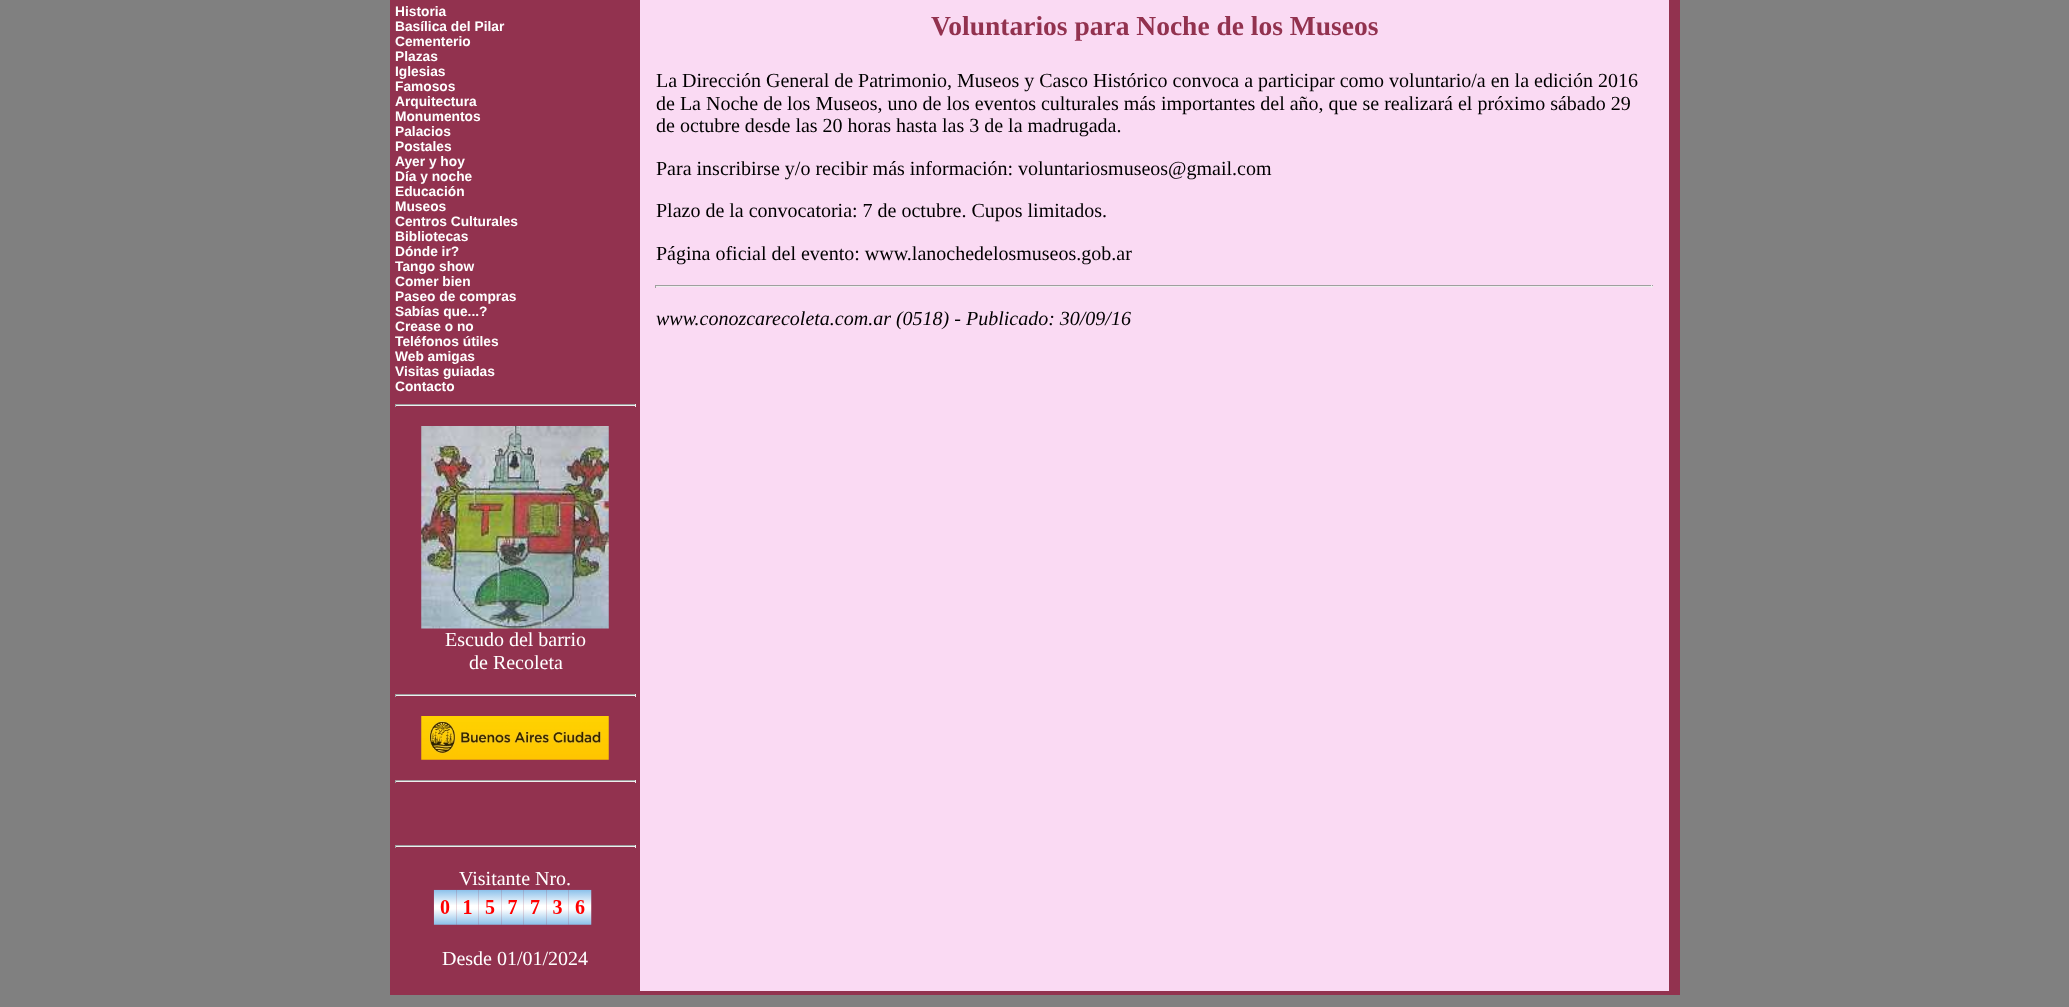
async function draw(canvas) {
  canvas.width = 2069
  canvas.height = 1007
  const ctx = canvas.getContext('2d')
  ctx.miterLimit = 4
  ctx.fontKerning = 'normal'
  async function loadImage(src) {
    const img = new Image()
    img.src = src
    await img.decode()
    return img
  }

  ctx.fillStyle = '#808080'
  ctx.fillRect(0, 0, 2069, 1007)
  ctx.fillStyle = '#92324f'
  ctx.fillRect(390, 0, 1290, 995)
  ctx.font = 'bold 13.75px Liberation Sans'
  ctx.fillStyle = '#fff'
  ctx.fillText('Historia', 395, 16)
  ctx.fillText('Basílica del Pilar', 395, 31)
  ctx.fillText('Cementerio', 395, 46)
  ctx.fillText('Plazas', 395, 61)
  ctx.fillText('Iglesias', 395, 76)
  ctx.fillText('Famosos', 395, 91)
  ctx.fillText('Arquitectura', 395, 106)
  ctx.fillText('Monumentos', 395, 121)
  ctx.fillText('Palacios', 395, 136)
  ctx.fillText('Postales', 395, 151)
  ctx.fillText('Ayer y hoy', 395, 166)
  ctx.fillText('Día y noche', 395, 181)
  ctx.fillText('Educación', 395, 196)
  ctx.fillText('Museos', 395, 211)
  ctx.fillText('Centros Culturales', 395, 226)
  ctx.fillText('Bibliotecas', 395, 241)
  ctx.fillText('Dónde ir?', 395, 256)
  ctx.fillText('Tango show', 395, 271)
  ctx.fillText('Comer bien', 395, 286)
  ctx.fillText('Paseo de compras', 395, 301)
  ctx.fillText('Sabías que...?', 395, 316)
  ctx.fillText('Crease o no', 395, 331)
  ctx.fillText('Teléfonos útiles', 395, 346)
  ctx.fillText('Web amigas', 395, 361)
  ctx.fillText('Visitas guiadas', 395, 376)
  ctx.fillText('Contacto', 395, 391)
  ctx.fillStyle = '#9f9f9f'
  ctx.fillRect(395, 404, 241, 1)
  ctx.fillStyle = '#eee'
  ctx.fillRect(635, 404, 1, 3)
  ctx.fillRect(395, 405, 241, 1)
  ctx.fillStyle = '#9f9f9f'
  ctx.fillRect(395, 404, 1, 3)
  ctx.drawImage(await loadImage('image0.png'), 421, 426, 188, 203)
  ctx.font = '20px Liberation Serif'
  ctx.fillStyle = '#fff'
  ctx.fillText('Escudo del barrio', 445, 646)
  ctx.fillText('de Recoleta', 469, 669)
  ctx.fillStyle = '#9f9f9f'
  ctx.fillRect(395, 694, 241, 1)
  ctx.fillStyle = '#eee'
  ctx.fillRect(635, 694, 1, 3)
  ctx.fillRect(395, 695, 241, 1)
  ctx.fillStyle = '#9f9f9f'
  ctx.fillRect(395, 694, 1, 3)
  ctx.drawImage(await loadImage('image1.png'), 421, 716, 188, 44)
  ctx.fillRect(395, 780, 241, 1)
  ctx.fillStyle = '#eee'
  ctx.fillRect(635, 780, 1, 3)
  ctx.fillRect(395, 781, 241, 1)
  ctx.fillStyle = '#9f9f9f'
  ctx.fillRect(395, 780, 1, 3)
  ctx.fillRect(395, 845, 241, 1)
  ctx.fillStyle = '#eee'
  ctx.fillRect(635, 845, 1, 3)
  ctx.fillRect(395, 846, 241, 1)
  ctx.fillStyle = '#9f9f9f'
  ctx.fillRect(395, 845, 1, 3)
  ctx.fillStyle = '#fff'
  ctx.fillText('Visitante Nro.', 459, 885)
  ctx.drawImage(await loadImage('image2.png'), 433, 889, 159, 36)
  ctx.fillText('Desde 01/01/2024', 442, 965)
  ctx.fillStyle = '#fadaf3'
  ctx.fillRect(640, 0, 1029, 991)
  ctx.font = 'bold 27.5px Liberation Serif'
  ctx.fillStyle = '#92324f'
  ctx.fillText('Voluntarios para Noche de los Museos', 931, 35)
  ctx.font = '20px Liberation Serif'
  ctx.fillStyle = '#000'
  ctx.fillText('La Dirección General de Patrimonio, Museos y Casco Histórico convoca a participar como voluntario/a en la edición 2016', 656, 87)
  ctx.fillText('de La Noche de los Museos, uno de los eventos culturales más importantes del año, que se realizará el próximo sábado 29', 656, 110)
  ctx.fillText('de octubre desde las 20 horas hasta las 3 de la madrugada.', 656, 132)
  ctx.fillText('Para inscribirse y/o recibir más información: voluntariosmuseos@gmail.com', 656, 175)
  ctx.fillText('Plazo de la convocatoria: 7 de octubre. Cupos limitados.', 656, 217)
  ctx.fillText('Página oficial del evento: www.lanochedelosmuseos.gob.ar', 656, 260)
  ctx.fillStyle = '#9f9f9f'
  ctx.fillRect(655, 285, 998, 1)
  ctx.fillStyle = '#eee'
  ctx.fillRect(1651, 285, 1, 3)
  ctx.fillRect(655, 286, 998, 1)
  ctx.fillStyle = '#9f9f9f'
  ctx.fillRect(655, 285, 1, 3)
  ctx.font = 'italic 20px Liberation Serif'
  ctx.fillStyle = '#000'
  ctx.fillText('www.conozcarecoleta.com.ar (0518) - Publicado: 30/09/16', 656, 325)
}

draw(document.querySelector('canvas'))
